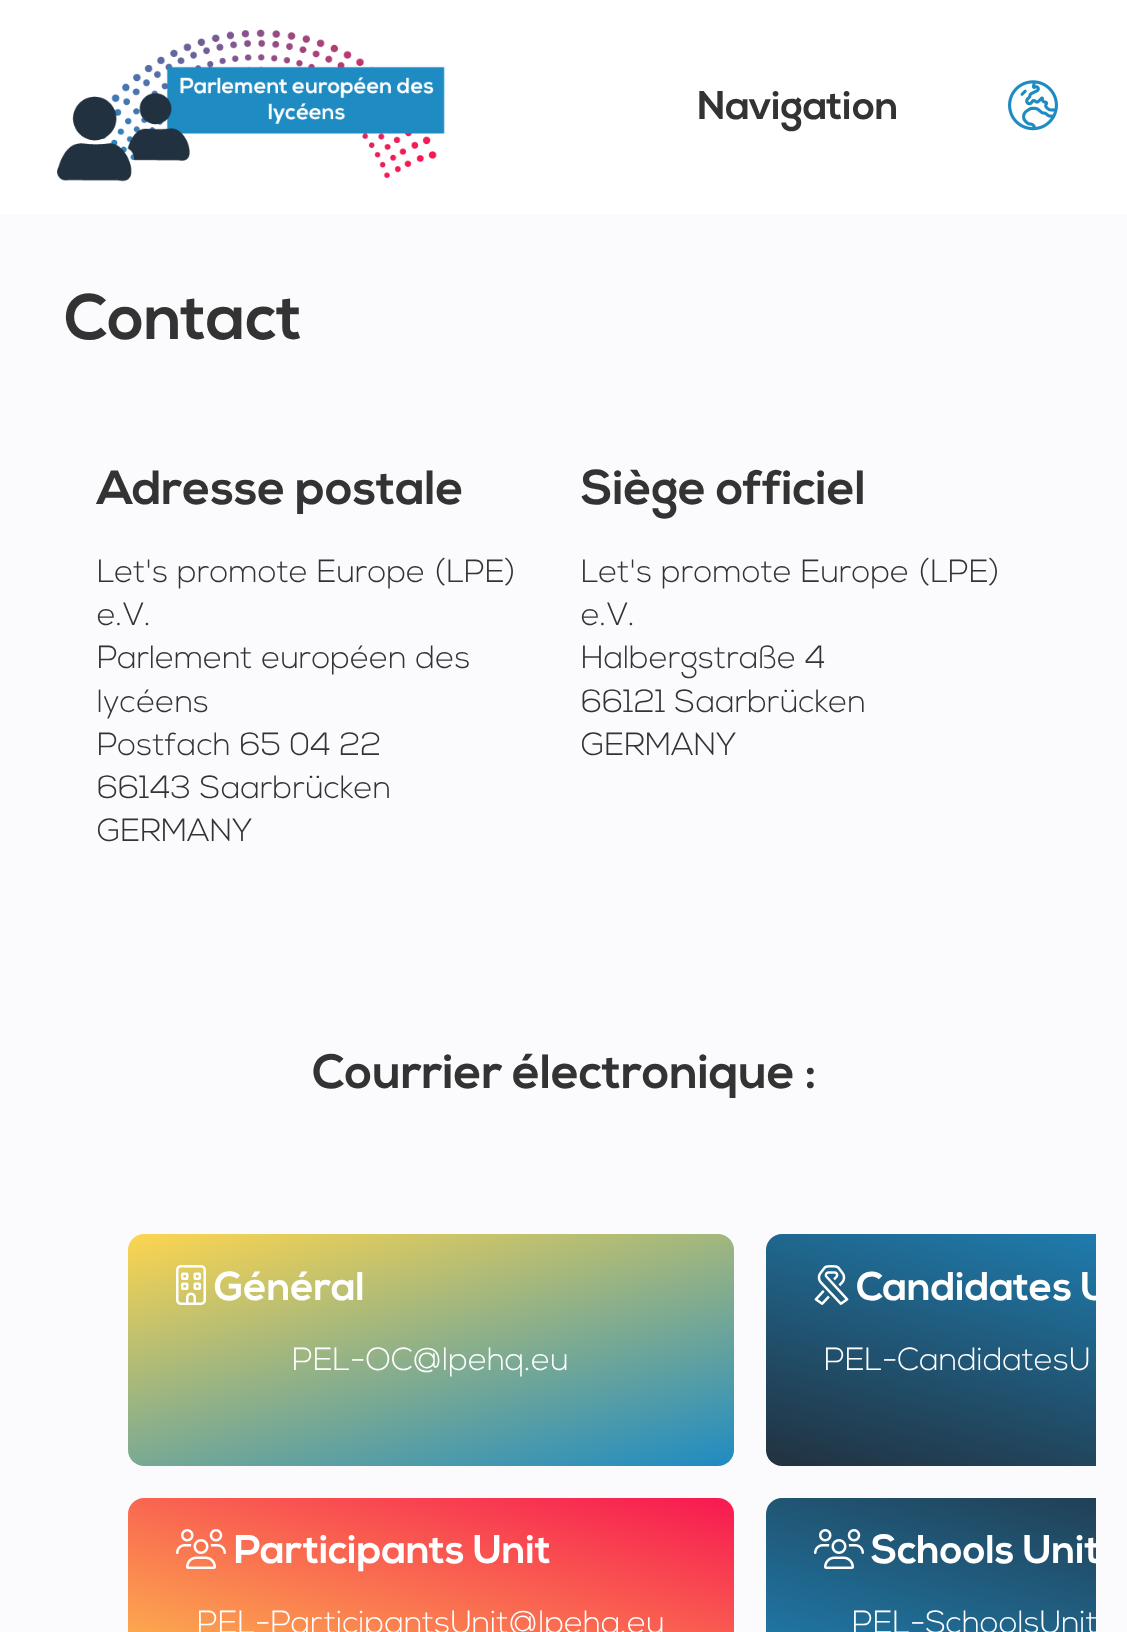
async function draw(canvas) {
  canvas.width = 1127
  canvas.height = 1632
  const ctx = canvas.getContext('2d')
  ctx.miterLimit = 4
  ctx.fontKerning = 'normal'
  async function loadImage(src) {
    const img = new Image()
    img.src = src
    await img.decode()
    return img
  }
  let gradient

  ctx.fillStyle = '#fbfbfd'
  ctx.fillRect(0, 0, 1127, 1632)
  ctx.fillStyle = '#fff'
  ctx.fillRect(0, 0, 1127, 214)
  ctx.drawImage(await loadImage('image0.png'), 57, 29, 388, 153)
  ctx.font = 'bold 40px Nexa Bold'
  ctx.fillStyle = '#333'
  ctx.fillText('Navigation', 697, 119)
  ctx.drawImage(await loadImage('image1.png'), 1008, 80, 50, 51)
  ctx.font = 'bold 64px Nexa Bold'
  ctx.fillText('Contact', 64, 339)
  ctx.font = 'bold 48px Nexa Bold'
  ctx.fillText('Adresse postale', 97, 504)
  ctx.font = '300 32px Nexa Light'
  ctx.fillText('Let\'s promote Europe (LPE)', 97, 582)
  ctx.fillText('e.V.', 97, 625)
  ctx.fillText('Parlement européen des', 97, 668)
  ctx.fillText('lycéens', 97, 712)
  ctx.fillText('Postfach 65 04 22', 97, 755)
  ctx.fillText('66143 Saarbrücken', 97, 798)
  ctx.fillText('GERMANY', 97, 841)
  ctx.font = 'bold 48px Nexa Bold'
  ctx.fillText('Siège officiel', 581, 504)
  ctx.font = '300 32px Nexa Light'
  ctx.fillText('Let\'s promote Europe (LPE)', 581, 582)
  ctx.fillText('e.V.', 581, 625)
  ctx.fillText('Halbergstraße 4', 581, 668)
  ctx.fillText('66121 Saarbrücken', 581, 712)
  ctx.fillText('GERMANY', 581, 755)
  ctx.font = 'bold 48px Nexa Bold'
  ctx.fillText('Courrier électronique :', 312, 1088)
  gradient = ctx.createLinearGradient(480, 1534, 382, 1166)
  gradient.addColorStop(0, '#1e8bc3')
  gradient.addColorStop(1, '#fdd54f')
  ctx.fillStyle = gradient
  ctx.beginPath()
  ctx.roundRect(128, 1234, 606, 232, 16)
  ctx.fill()
  ctx.drawImage(await loadImage('image2.png'), 176, 1265, 30, 40)
  ctx.font = 'bold 40px Nexa Bold'
  ctx.fillStyle = '#fff'
  ctx.fillText('Général', 214, 1300)
  ctx.font = '300 32px Nexa Light'
  ctx.fillText('PEL-OC@lpehq.eu', 292, 1370)
  gradient = ctx.createLinearGradient(1006, 1530, 1102, 1170)
  gradient.addColorStop(0, '#22313f')
  gradient.addColorStop(1, '#1e8bc3')
  ctx.fillStyle = gradient
  ctx.beginPath()
  ctx.roundRect(766, 1234, 330, 232, [16, 0, 0, 16])
  ctx.fill()
  ctx.drawImage(await loadImage('image3.png'), 814, 1265, 35, 40)
  ctx.save()
  ctx.beginPath()
  ctx.rect(32, 1170, 1064, 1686)
  ctx.clip()
  ctx.font = 'bold 40px Nexa Bold'
  ctx.fillStyle = '#fff'
  ctx.fillText('Candidates U', 856, 1300)
  ctx.restore()
  ctx.fillStyle = '#fff'
  ctx.fillText('PEL-CandidatesU', 824, 1370)
  gradient = ctx.createLinearGradient(382, 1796, 480, 1430)
  gradient.addColorStop(0, '#fdd54f')
  gradient.addColorStop(1, '#f71851')
  ctx.fillStyle = gradient
  ctx.beginPath()
  ctx.roundRect(128, 1498, 606, 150, 16)
  ctx.fill()
  ctx.drawImage(await loadImage('image4.png'), 176, 1529, 50, 40)
  ctx.font = 'bold 40px Nexa Bold'
  ctx.fillStyle = '#fff'
  ctx.fillText('Participants Unit', 234, 1563)
  ctx.font = '300 32px Nexa Light'
  ctx.fillText('PEL-ParticipantsUnit@lpehq.eu', 197, 1633)
  gradient = ctx.createLinearGradient(1006, 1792, 1102, 1434)
  gradient.addColorStop(0, '#1e8bc3')
  gradient.addColorStop(1, '#22313f')
  ctx.fillStyle = gradient
  ctx.beginPath()
  ctx.moveTo(782, 1498)
  ctx.lineTo(1096, 1498)
  ctx.lineTo(1096, 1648)
  ctx.lineTo(782, 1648)
  ctx.bezierCurveTo(773, 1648, 766, 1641, 766, 1632)
  ctx.lineTo(766, 1514)
  ctx.bezierCurveTo(766, 1505, 773, 1498, 782, 1498)
  ctx.closePath()
  ctx.fill()
  ctx.drawImage(await loadImage('image5.png'), 814, 1529, 50, 40)
  ctx.save()
  ctx.beginPath()
  ctx.rect(32, 1170, 1064, 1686)
  ctx.clip()
  ctx.font = 'bold 40px Nexa Bold'
  ctx.fillStyle = '#fff'
  ctx.fillText('Schools Unit', 871, 1563)
  ctx.font = '300 32px Nexa Light'
  ctx.fillText('PEL-SchoolsUnit', 852, 1633)
  ctx.restore()
}

draw(document.querySelector('canvas'))
